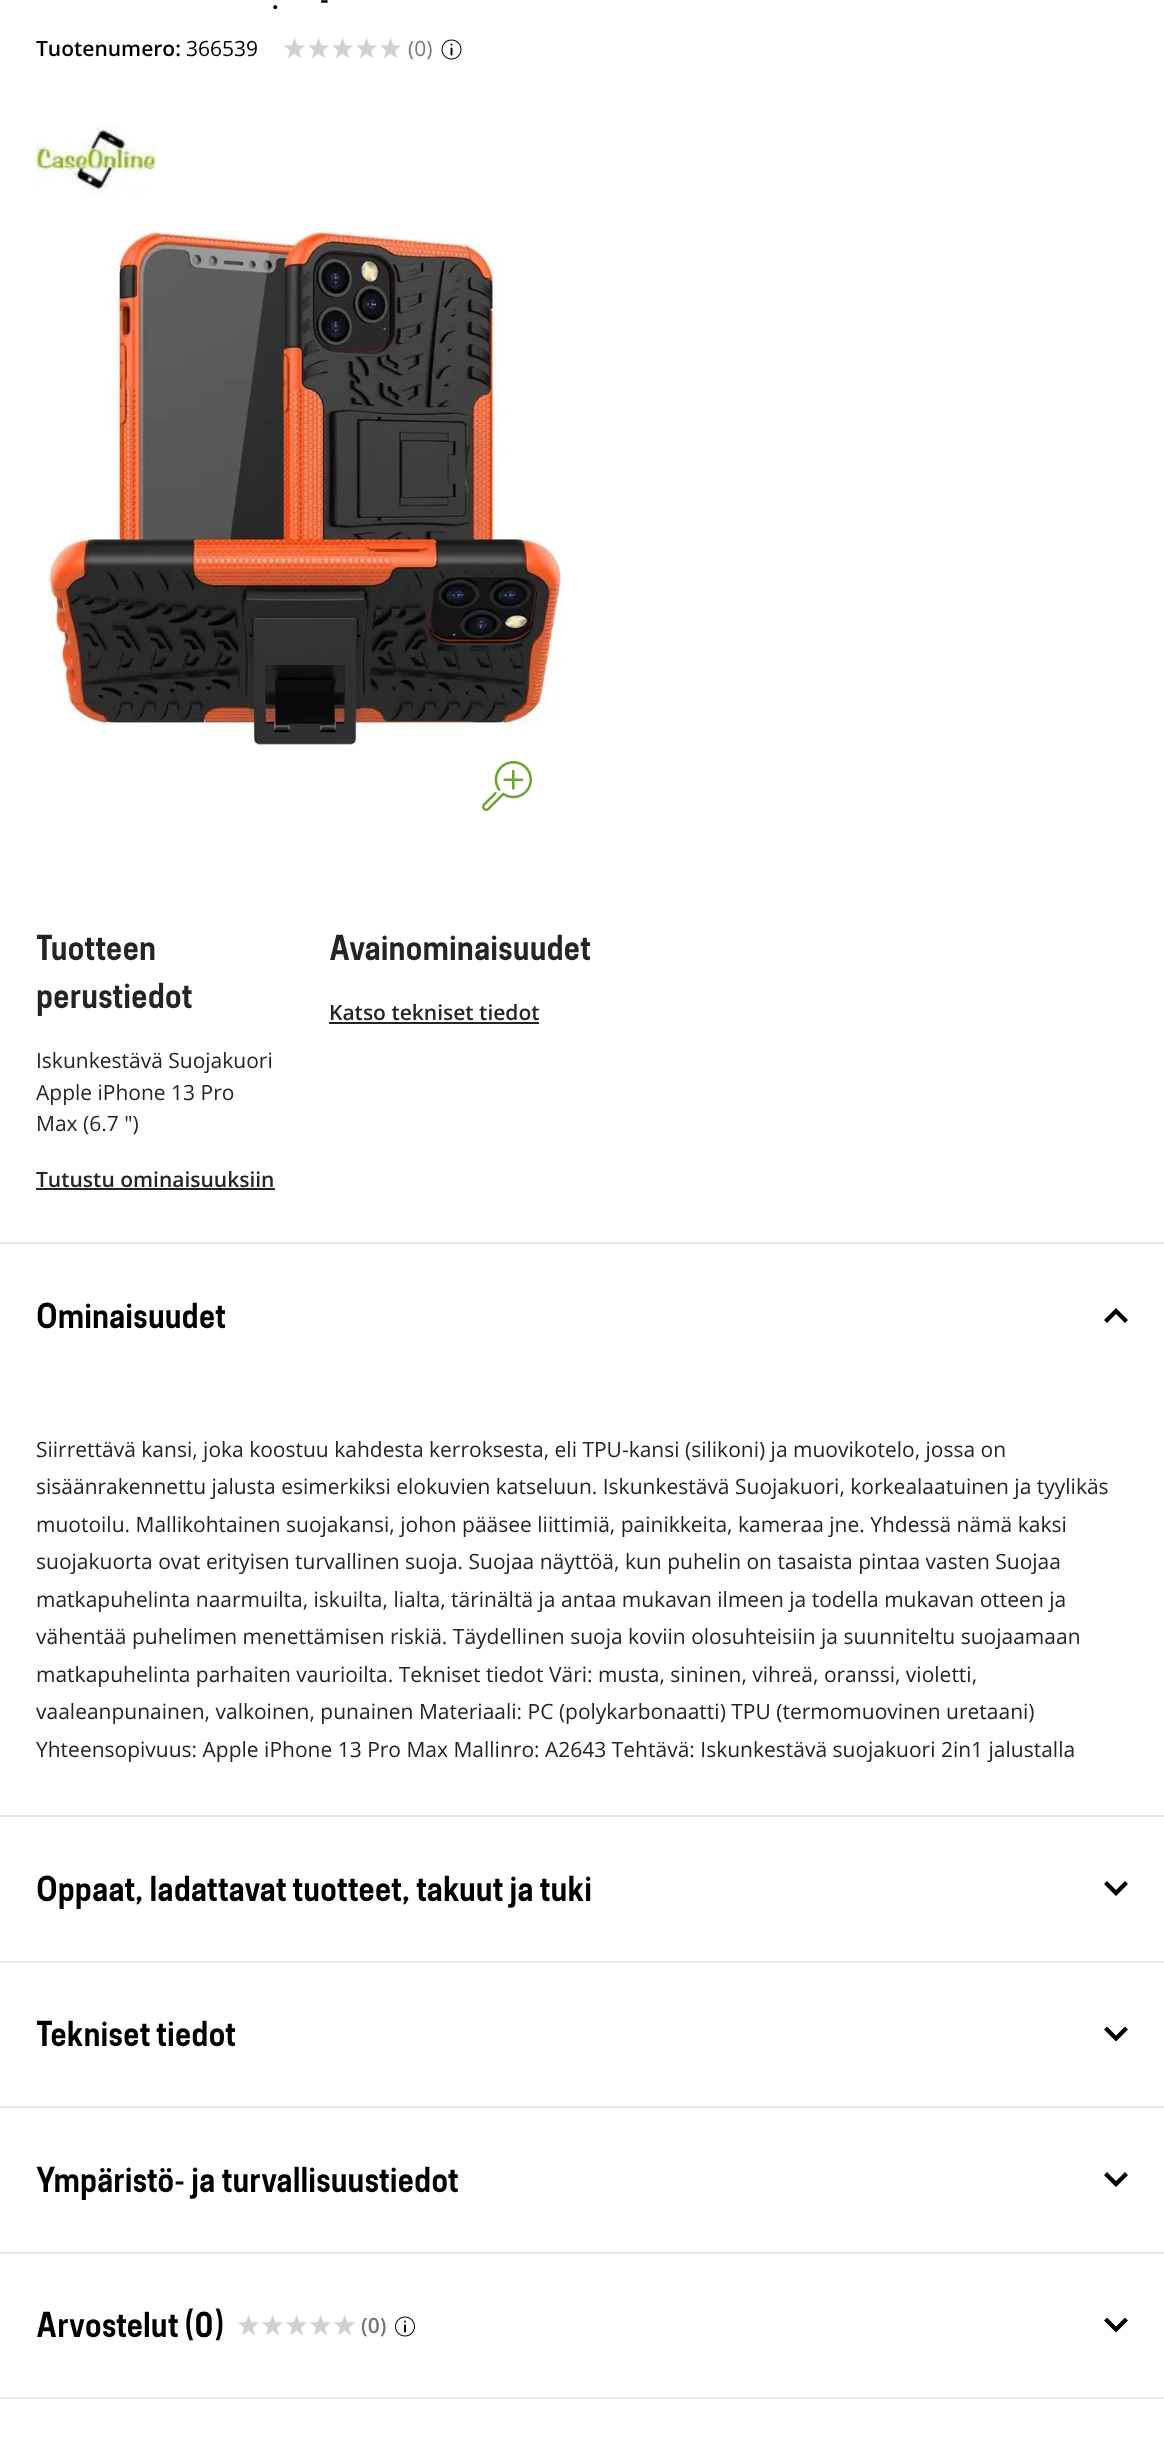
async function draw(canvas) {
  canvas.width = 1164
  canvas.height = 2442
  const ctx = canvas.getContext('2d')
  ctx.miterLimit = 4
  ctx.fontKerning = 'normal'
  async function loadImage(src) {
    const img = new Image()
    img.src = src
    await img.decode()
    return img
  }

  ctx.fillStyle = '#fff'
  ctx.fillRect(0, 0, 1164, 2442)
  ctx.font = '600 30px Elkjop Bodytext'
  ctx.fillStyle = '#000'
  ctx.fillText('-', 320, 9)
  ctx.fillText('.', 272, 9)
  ctx.font = '600 21px Open Sans'
  ctx.fillText('Tuotenumero:', 36, 56)
  ctx.font = '21px Open Sans'
  ctx.fillText('366539', 186, 56)
  ctx.drawImage(await loadImage('image0.png'), 284, 38, 117, 20)
  ctx.fillStyle = '#767676'
  ctx.fillText('(0)', 408, 56)
  ctx.drawImage(await loadImage('image1.png'), 441, 39, 21, 21)
  ctx.drawImage(await loadImage('image2.png'), 36, 123, 120, 71)
  ctx.drawImage(await loadImage('image3.png'), 48, 231, 516, 514)
  ctx.drawImage(await loadImage('image4.png'), 482, 761, 50, 50)
  ctx.font = '600 36px Elkjop Bodytext'
  ctx.fillStyle = '#242424'
  ctx.fillText('Tuotteen', 36, 960)
  ctx.fillText('perustiedot', 36, 1008)
  ctx.font = '21px Open Sans'
  ctx.fillText('Iskunkestävä Suojakuori', 36, 1068)
  ctx.fillText('Apple iPhone 13 Pro', 36, 1100)
  ctx.fillText('Max (6.7 ")', 36, 1131)
  ctx.font = '600 21px Open Sans'
  ctx.fillText('Tutustu ominaisuuksiin', 36, 1187)
  ctx.fillRect(36, 1188, 239, 2)
  ctx.font = '600 36px Elkjop Bodytext'
  ctx.fillText('Avainominaisuudet', 329, 960)
  ctx.font = '600 21px Open Sans'
  ctx.fillText('Katso tekniset tiedot', 329, 1020)
  ctx.fillRect(329, 1022, 210, 2)
  ctx.fillStyle = '#e8e8e8'
  ctx.fillRect(0, 1242, 1164, 2)
  ctx.fillRect(0, 2397, 1164, 2)
  ctx.font = '600 36px Elkjop Bodytext'
  ctx.fillStyle = '#000'
  ctx.fillText('Ominaisuudet', 36, 1328)
  ctx.beginPath()
  ctx.moveTo(1125, 1323)
  ctx.lineTo(1128, 1320)
  ctx.lineTo(1116, 1308)
  ctx.lineTo(1104, 1320)
  ctx.lineTo(1107, 1323)
  ctx.lineTo(1116, 1314)
  ctx.closePath()
  ctx.fill()
  ctx.font = '21px Open Sans'
  ctx.fillStyle = '#242424'
  ctx.fillText('Siirrettävä kansi, joka koostuu kahdesta kerroksesta, eli TPU-kansi (silikoni) ja muovikotelo, jossa on', 36, 1457)
  ctx.fillText('sisäänrakennettu jalusta esimerkiksi elokuvien katseluun. Iskunkestävä Suojakuori, korkealaatuinen ja tyylikäs', 36, 1494)
  ctx.fillText('muotoilu. Mallikohtainen suojakansi, johon pääsee liittimiä, painikkeita, kameraa jne. Yhdessä nämä kaksi', 36, 1532)
  ctx.fillText('suojakuorta ovat erityisen turvallinen suoja. Suojaa näyttöä, kun puhelin on tasaista pintaa vasten Suojaa', 36, 1569)
  ctx.fillText('matkapuhelinta naarmuilta, iskuilta, lialta, tärinältä ja antaa mukavan ilmeen ja todella mukavan otteen ja', 36, 1607)
  ctx.fillText('vähentää puhelimen menettämisen riskiä. Täydellinen suoja koviin olosuhteisiin ja suunniteltu suojaamaan', 36, 1644)
  ctx.fillText('matkapuhelinta parhaiten vaurioilta. Tekniset tiedot Väri: musta, sininen, vihreä, oranssi, violetti,', 36, 1682)
  ctx.fillText('vaaleanpunainen, valkoinen, punainen Materiaali: PC (polykarbonaatti) TPU (termomuovinen uretaani)', 36, 1719)
  ctx.fillText('Yhteensopivuus: Apple iPhone 13 Pro Max Mallinro: A2643 Tehtävä: Iskunkestävä suojakuori 2in1 jalustalla', 36, 1757)
  ctx.fillStyle = '#e8e8e8'
  ctx.fillRect(0, 1815, 1164, 2)
  ctx.font = '600 36px Elkjop Bodytext'
  ctx.fillStyle = '#000'
  ctx.fillText('Oppaat, ladattavat tuotteet, takuut ja tuki', 36, 1901)
  ctx.beginPath()
  ctx.moveTo(1107, 1881)
  ctx.lineTo(1104, 1884)
  ctx.lineTo(1116, 1896)
  ctx.lineTo(1128, 1884)
  ctx.lineTo(1125, 1881)
  ctx.lineTo(1116, 1890)
  ctx.closePath()
  ctx.fill()
  ctx.fillStyle = '#e8e8e8'
  ctx.fillRect(0, 1961, 1164, 2)
  ctx.fillStyle = '#000'
  ctx.fillText('Tekniset tiedot', 36, 2046)
  ctx.save()
  ctx.beginPath()
  ctx.rect(1104, 2027, 24, 15)
  ctx.clip()
  ctx.beginPath()
  ctx.moveTo(1107, 2026.5)
  ctx.lineTo(1104, 2029.5)
  ctx.lineTo(1116, 2041.5)
  ctx.lineTo(1128, 2029.5)
  ctx.lineTo(1125, 2026.5)
  ctx.lineTo(1116, 2035.5)
  ctx.closePath()
  ctx.fill()
  ctx.restore()
  ctx.fillStyle = '#e8e8e8'
  ctx.fillRect(0, 2106, 1164, 2)
  ctx.fillStyle = '#000'
  ctx.fillText('Ympäristö- ja turvallisuustiedot', 36, 2192)
  ctx.beginPath()
  ctx.moveTo(1107, 2172)
  ctx.lineTo(1104, 2175)
  ctx.lineTo(1116, 2187)
  ctx.lineTo(1128, 2175)
  ctx.lineTo(1125, 2172)
  ctx.lineTo(1116, 2181)
  ctx.closePath()
  ctx.fill()
  ctx.fillStyle = '#e8e8e8'
  ctx.fillRect(0, 2252, 1164, 2)
  ctx.fillStyle = '#000'
  ctx.fillText('Arvostelut (0)', 36, 2337)
  ctx.drawImage(await loadImage('image5.png'), 238, 2315, 117, 20)
  ctx.font = '600 21px Open Sans'
  ctx.fillStyle = '#767676'
  ctx.fillText('(0)', 361, 2333)
  ctx.drawImage(await loadImage('image6.png'), 395, 2316, 20, 21)
  ctx.save()
  ctx.beginPath()
  ctx.rect(1104, 2318, 24, 15)
  ctx.clip()
  ctx.fillStyle = '#000'
  ctx.beginPath()
  ctx.moveTo(1107, 2317.5)
  ctx.lineTo(1104, 2320.5)
  ctx.lineTo(1116, 2332.5)
  ctx.lineTo(1128, 2320.5)
  ctx.lineTo(1125, 2317.5)
  ctx.lineTo(1116, 2326.5)
  ctx.closePath()
  ctx.fill()
  ctx.restore()
}

draw(document.querySelector('canvas'))
